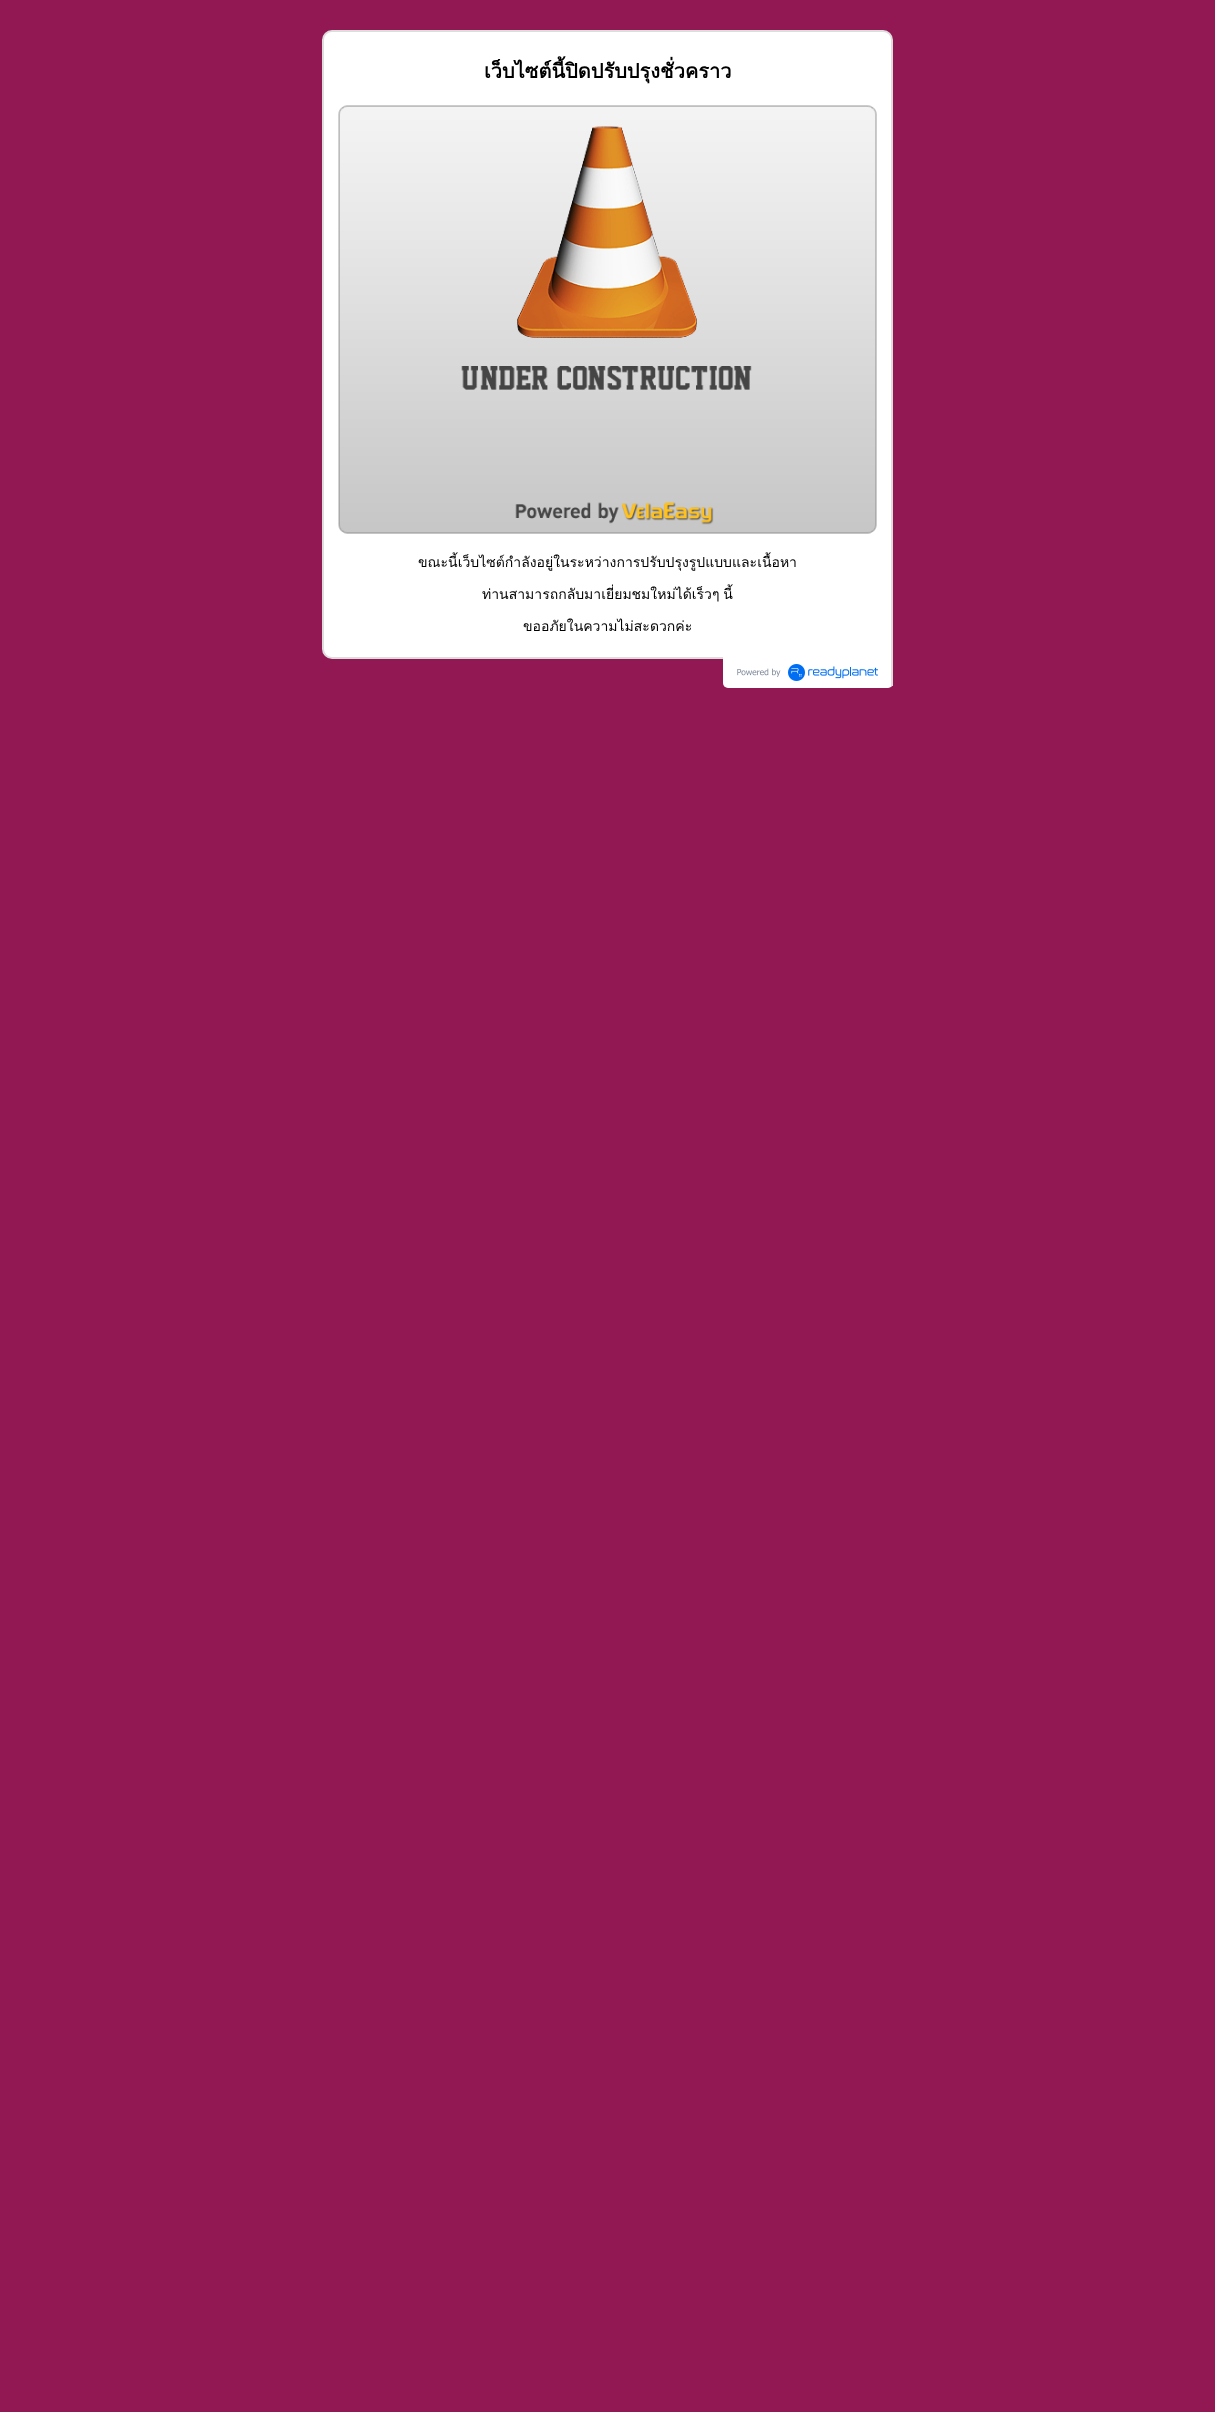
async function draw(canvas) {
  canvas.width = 1215
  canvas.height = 2412
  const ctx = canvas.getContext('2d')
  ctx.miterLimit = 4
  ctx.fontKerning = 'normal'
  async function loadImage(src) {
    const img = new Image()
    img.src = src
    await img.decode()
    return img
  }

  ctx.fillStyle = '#921853'
  ctx.fillRect(0, 0, 1215, 2412)
  ctx.fillStyle = '#fff'
  ctx.beginPath()
  ctx.roundRect(323, 31, 569, 627, 9)
  ctx.fill()
  ctx.strokeStyle = '#ddd'
  ctx.lineWidth = 2
  ctx.stroke()
  ctx.font = 'bold 20px Loma'
  ctx.fillStyle = '#000'
  ctx.fillText('เว็บไซต์นี้ปิดปรับปรุงชั่วคราว', 484, 78)
  ctx.drawImage(await loadImage('image0.png'), 338, 105, 539, 429)
  ctx.font = '14px Loma'
  ctx.fillText('ขณะนี้เว็บไซต์กำลังอยู่ในระหว่างการปรับปรุงรูปแบบและเนื้อหา', 418, 567)
  ctx.wordSpacing = '-1px'
  ctx.fillText('ท่านสามารถกลับมาเยี่ยมชมใหม่ได้เร็วๆ นี้', 482, 599)
  ctx.wordSpacing = '0px'
  ctx.fillText('ขออภัยในความไม่สะดวกค่ะ', 523, 631)
  ctx.fillStyle = '#fff'
  ctx.beginPath()
  ctx.roundRect(723, 647, 170, 41, [0, 0, 5, 5])
  ctx.fill()
  ctx.fillStyle = '#ddd'
  ctx.fillRect(891, 647, 2, 39)
  ctx.drawImage(await loadImage('image1.png'), 737, 664, 141, 17)
}

draw(document.querySelector('canvas'))
